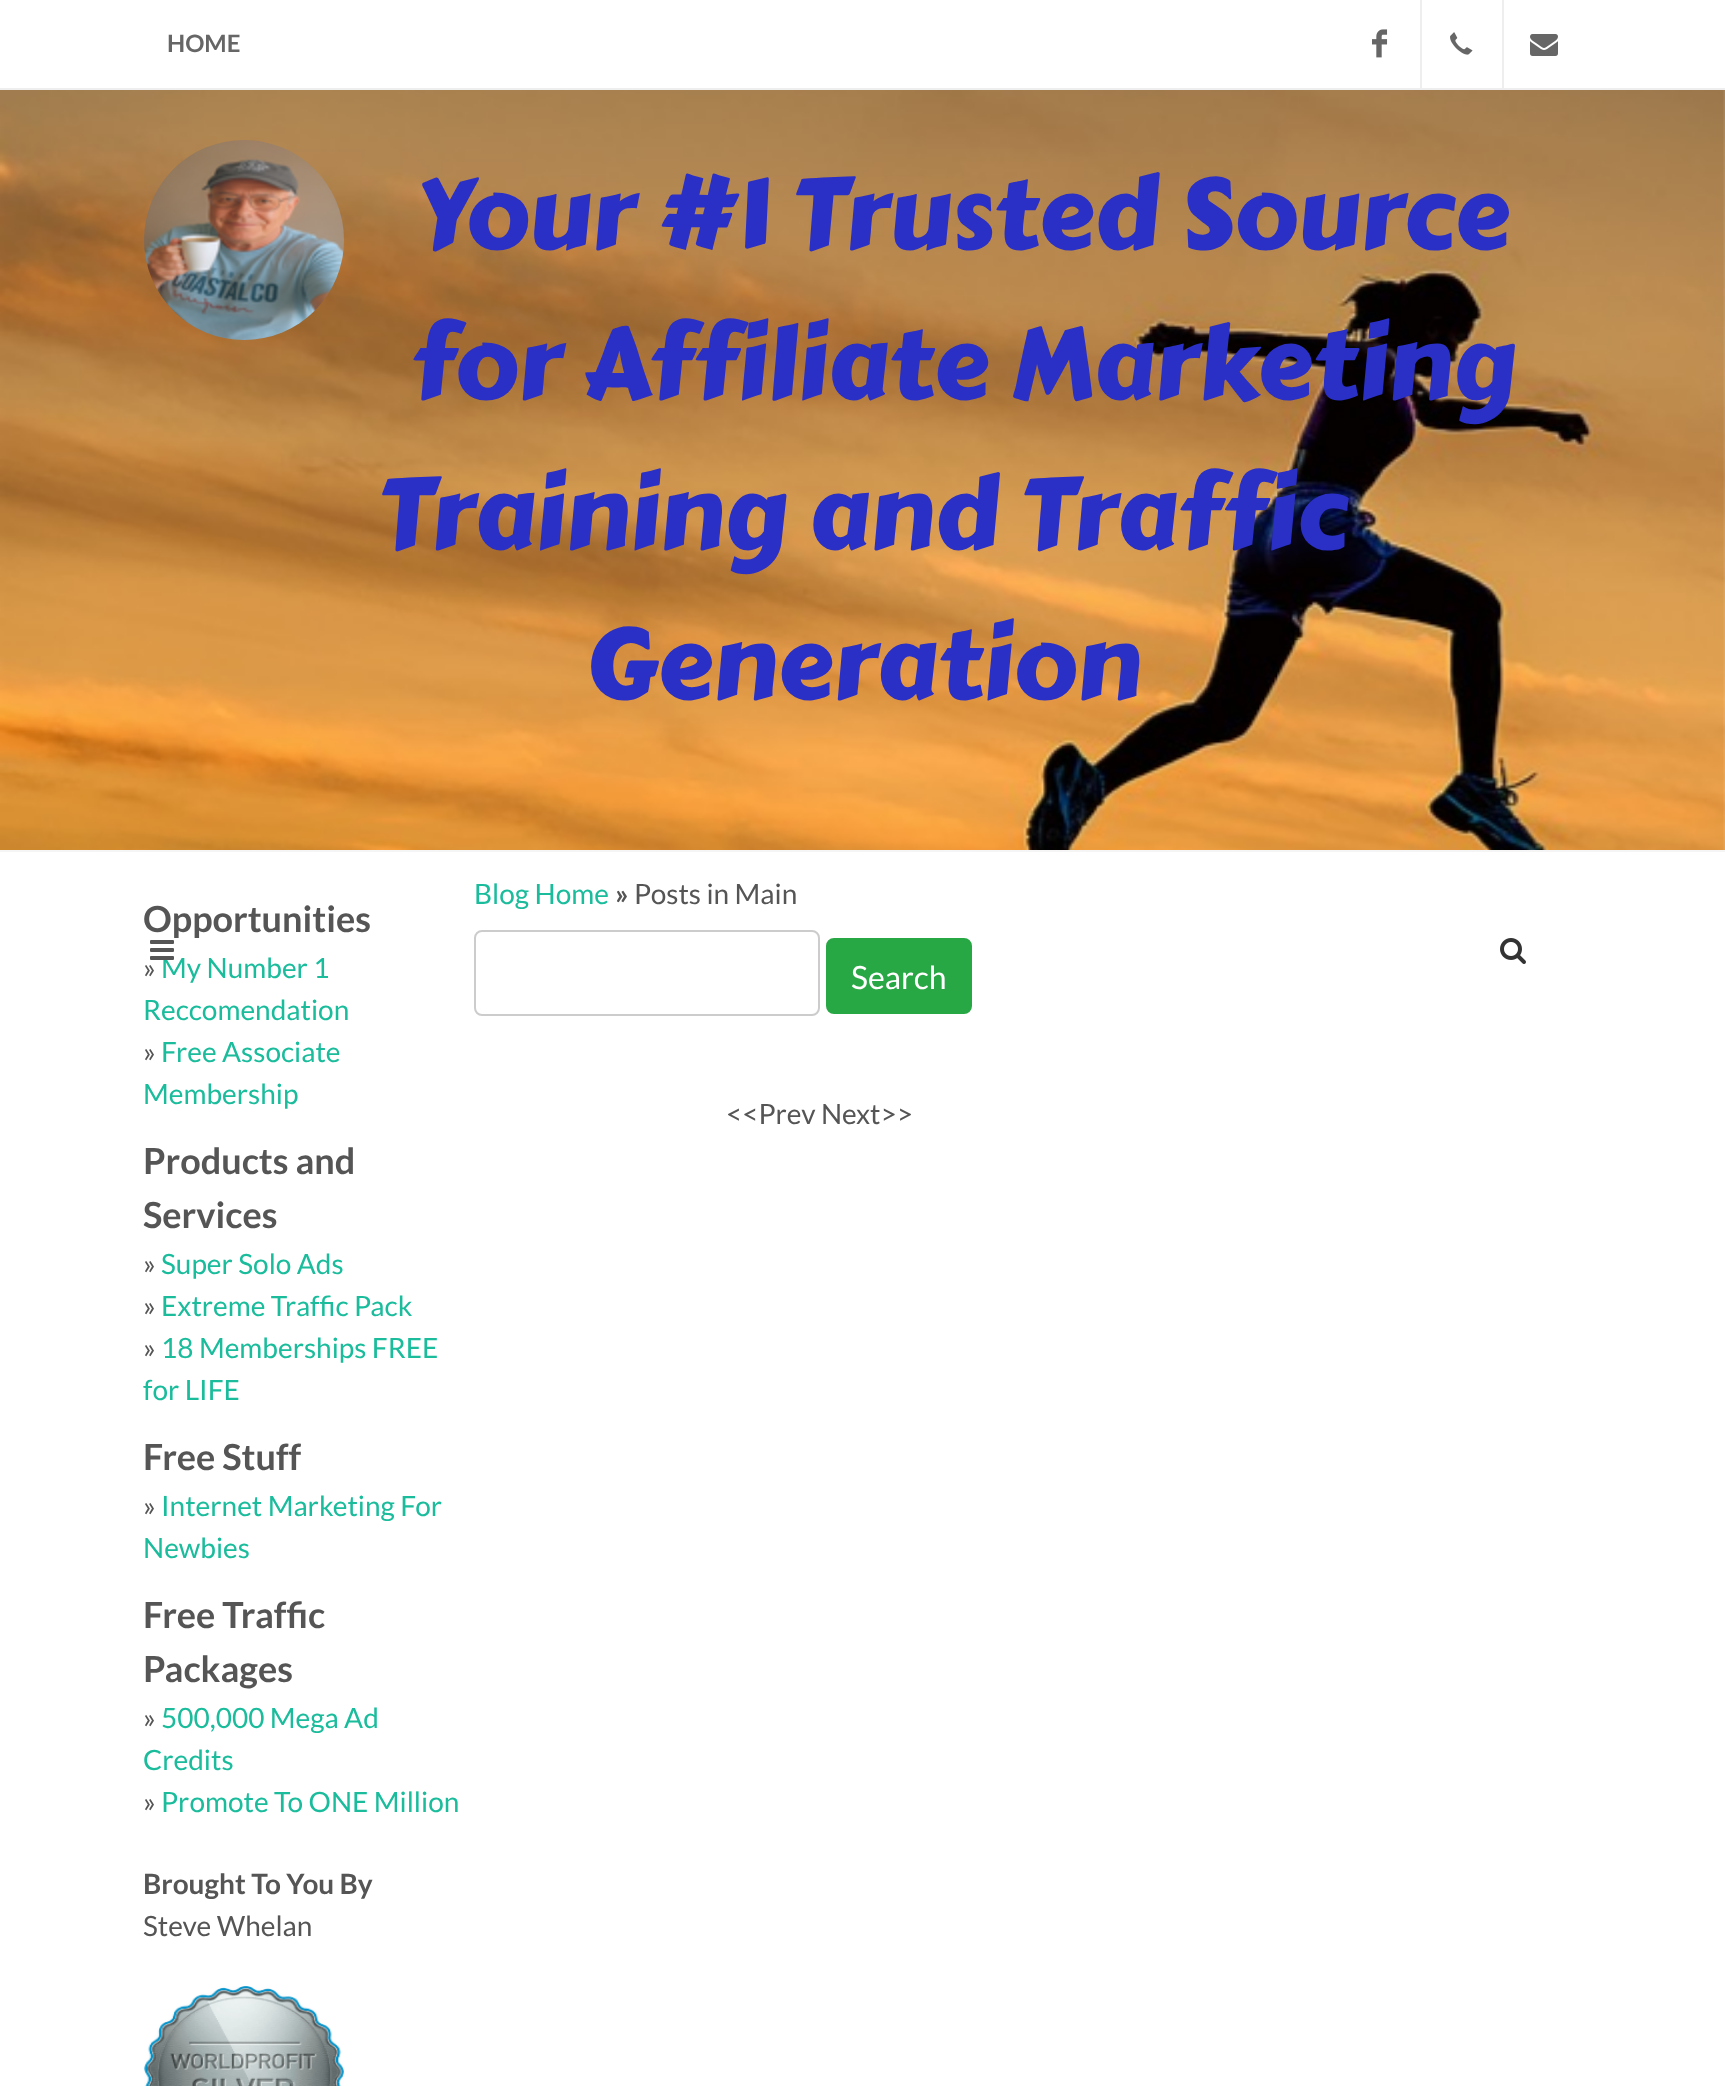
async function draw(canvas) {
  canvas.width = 1725
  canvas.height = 2086
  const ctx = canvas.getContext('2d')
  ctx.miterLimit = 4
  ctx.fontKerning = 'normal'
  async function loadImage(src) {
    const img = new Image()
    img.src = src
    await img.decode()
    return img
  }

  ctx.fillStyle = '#fff'
  ctx.fillRect(0, 0, 1725, 2086)
  ctx.fillStyle = '#eee'
  ctx.fillRect(0, 88, 1725, 2)
  ctx.font = 'bold 24px Lato'
  ctx.fillStyle = '#666'
  ctx.fillText('HOME', 167, 52)
  ctx.drawImage(await loadImage('image0.png'), 1372, 29, 16, 29)
  ctx.fillStyle = '#eee'
  ctx.fillRect(1420, 0, 2, 88)
  ctx.drawImage(await loadImage('image1.png'), 1450, 32, 23, 23)
  ctx.fillRect(1502, 0, 2, 88)
  ctx.drawImage(await loadImage('image2.png'), 1530, 34, 28, 22)
  ctx.drawImage(await loadImage('image3.png'), 0, 90, 1725, 760)
  ctx.drawImage(await loadImage('image4.png'), 144, 140, 200, 200)
  ctx.font = '100px Carter One'
  ctx.fillStyle = '#2a2fc6'
  ctx.fillText('Your #1 Trusted Source', 417, 248)
  ctx.fillText('for Affiliate Marketing', 410, 398)
  ctx.fillText('Training and Traffic', 378, 548)
  ctx.fillText('Generation', 585, 698)
  ctx.fillStyle = '#f5f5f5'
  ctx.fillRect(0, 850, 1725, 2)
  ctx.font = '28px Lato'
  ctx.fillStyle = '#1abc9c'
  ctx.fillText('My Number 1', 161, 978)
  ctx.drawImage(await loadImage('image5.png'), 150, 940, 24, 20)
  ctx.drawImage(await loadImage('image6.png'), 1500, 938, 26, 26)
  ctx.font = 'bold 36px Lato'
  ctx.fillStyle = '#555'
  ctx.fillText('Opportunities', 143, 932)
  ctx.font = '28px Lato'
  ctx.fillText('»', 143, 978)
  ctx.fillStyle = '#1abc9c'
  ctx.fillText('Reccomendation', 143, 1020)
  ctx.fillStyle = '#555'
  ctx.fillText('»', 143, 1062)
  ctx.fillStyle = '#1abc9c'
  ctx.fillText('Free Associate', 161, 1062)
  ctx.fillText('Membership', 143, 1104)
  ctx.font = 'bold 36px Lato'
  ctx.fillStyle = '#555'
  ctx.fillText('Products and', 143, 1174)
  ctx.fillText('Services', 143, 1228)
  ctx.font = '28px Lato'
  ctx.fillText('»', 143, 1274)
  ctx.fillStyle = '#1abc9c'
  ctx.fillText('Super Solo Ads', 161, 1274)
  ctx.fillStyle = '#555'
  ctx.fillText('»', 143, 1316)
  ctx.fillStyle = '#1abc9c'
  ctx.fillText('Extreme Traffic Pack', 161, 1316)
  ctx.fillStyle = '#555'
  ctx.fillText('»', 143, 1358)
  ctx.fillStyle = '#1abc9c'
  ctx.fillText('18 Memberships FREE', 161, 1358)
  ctx.fillText('for LIFE', 143, 1400)
  ctx.font = 'bold 36px Lato'
  ctx.fillStyle = '#555'
  ctx.fillText('Free Stuff', 143, 1470)
  ctx.font = '28px Lato'
  ctx.fillText('»', 143, 1516)
  ctx.fillStyle = '#1abc9c'
  ctx.fillText('Internet Marketing For', 161, 1516)
  ctx.fillText('Newbies', 143, 1558)
  ctx.font = 'bold 36px Lato'
  ctx.fillStyle = '#555'
  ctx.fillText('Free Traffic', 143, 1628)
  ctx.fillText('Packages', 143, 1682)
  ctx.font = '28px Lato'
  ctx.fillText('»', 143, 1728)
  ctx.fillStyle = '#1abc9c'
  ctx.fillText('500,000 Mega Ad', 161, 1728)
  ctx.fillText('Credits', 143, 1770)
  ctx.fillStyle = '#555'
  ctx.fillText('»', 143, 1812)
  ctx.fillStyle = '#1abc9c'
  ctx.fillText('Promote To ONE Million', 161, 1812)
  ctx.font = 'bold 28px Lato'
  ctx.fillStyle = '#555'
  ctx.fillText('Brought To You By', 143, 1894)
  ctx.font = '28px Lato'
  ctx.fillText('Steve Whelan', 143, 1936)
  ctx.drawImage(await loadImage('image7.png'), 144, 1986, 200, 100)
  ctx.fillStyle = '#1abc9c'
  ctx.fillText('Blog Home', 474, 904)
  ctx.font = 'bold 28px Lato'
  ctx.fillStyle = '#555'
  ctx.fillText('»', 615, 904)
  ctx.font = '28px Lato'
  ctx.fillText('Posts in Main', 634, 904)
  ctx.beginPath()
  ctx.roundRect(475, 931, 344, 84, 7)
  ctx.strokeStyle = '#ccc'
  ctx.lineWidth = 2
  ctx.stroke()
  ctx.fillStyle = '#28a745'
  ctx.beginPath()
  ctx.roundRect(827, 939, 144, 74, 7)
  ctx.fill()
  ctx.strokeStyle = '#28a745'
  ctx.stroke()
  ctx.font = '32px Lato'
  ctx.fillStyle = '#fff'
  ctx.fillText('Search', 851, 989)
  ctx.font = '28px Lato'
  ctx.fillStyle = '#555'
  ctx.fillText('<<Prev Next>>', 726, 1124)
}

draw(document.querySelector('canvas'))
